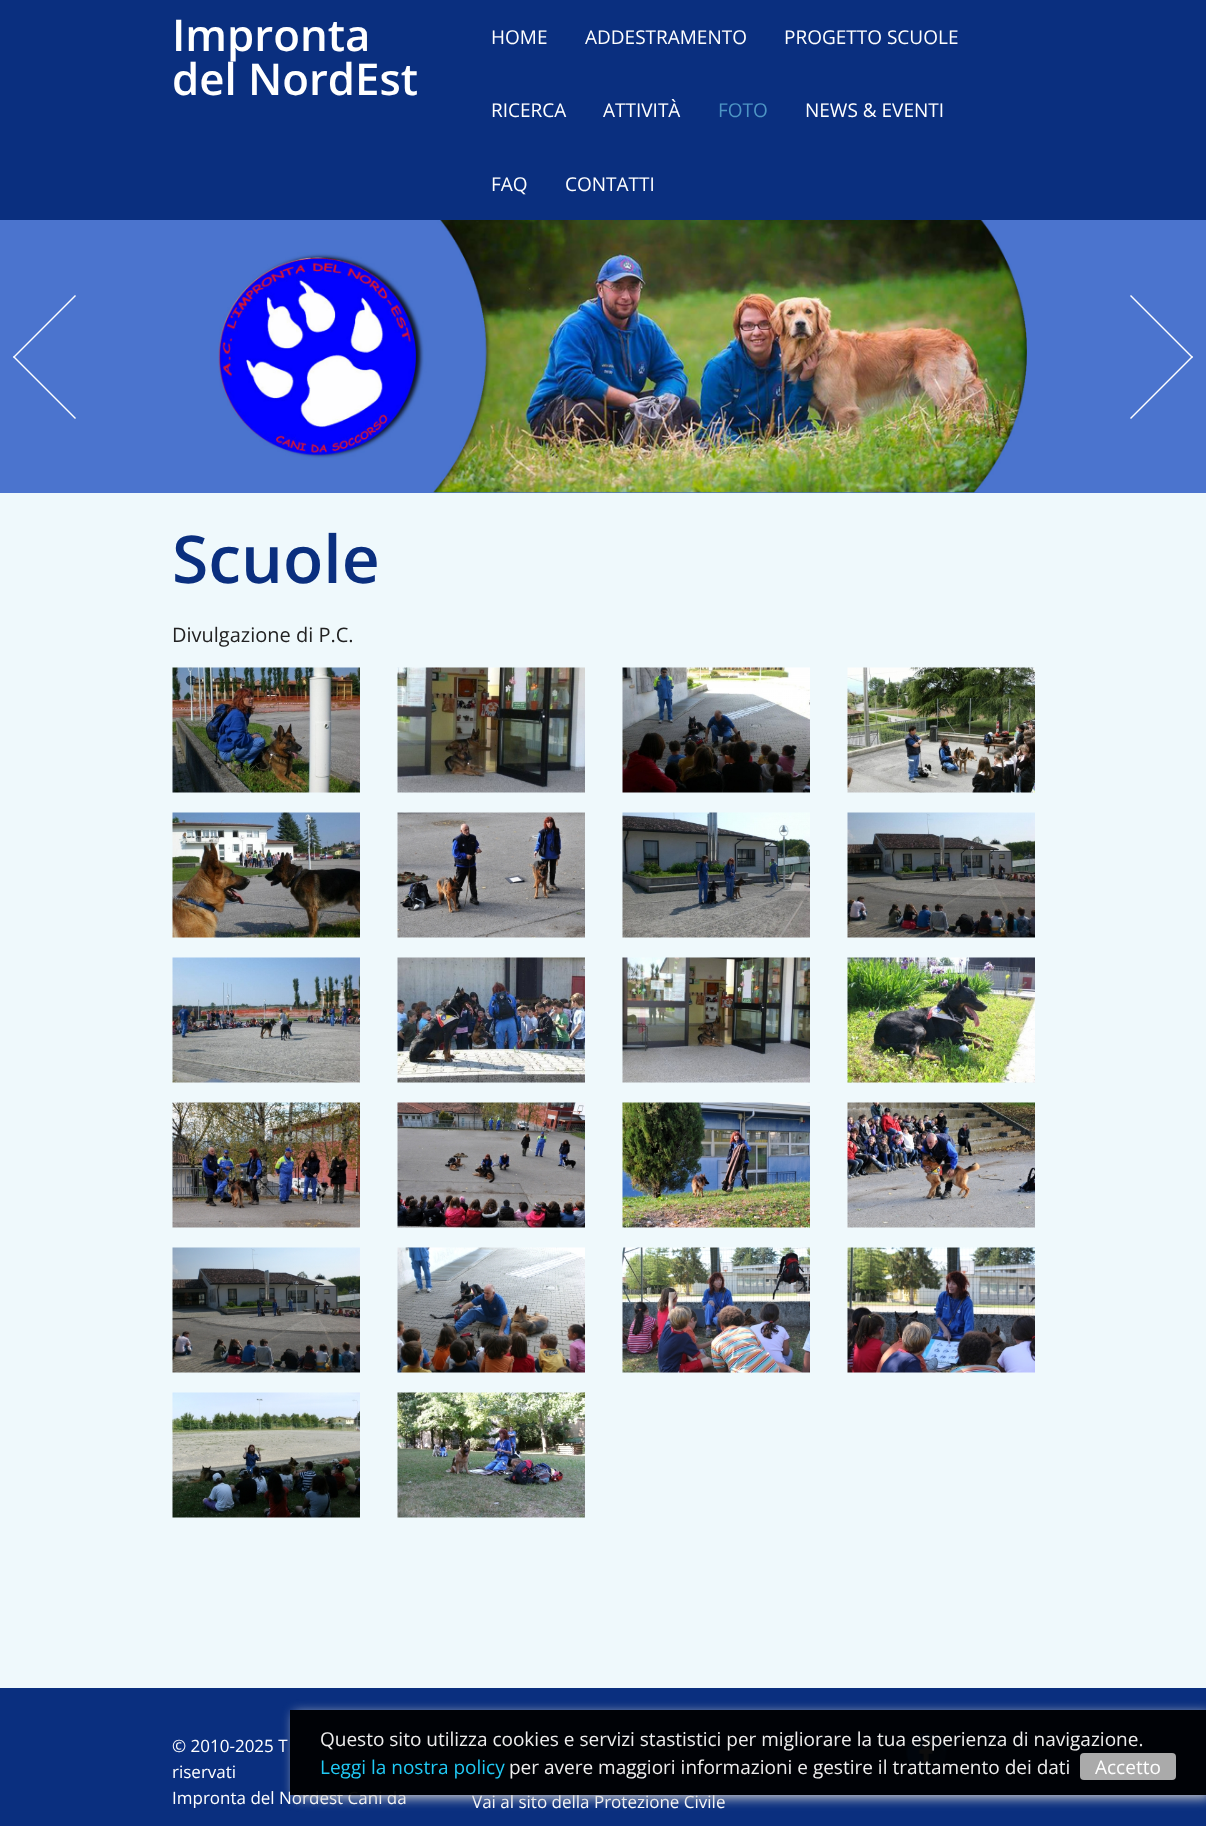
async function draw(canvas) {
  canvas.width = 1206
  canvas.height = 1826
  const ctx = canvas.getContext('2d')
  ctx.miterLimit = 4
  ctx.fontKerning = 'normal'
  async function loadImage(src) {
    const img = new Image()
    img.src = src
    await img.decode()
    return img
  }

  ctx.fillStyle = '#0a2f7f'
  ctx.fillRect(0, 0, 1206, 1826)
  ctx.font = '600 43.75px Open Sans'
  ctx.fillStyle = '#fff'
  ctx.fillText('Impronta', 172, 51)
  ctx.fillText('del NordEst', 172, 95)
  ctx.font = '19px Open Sans'
  ctx.fillText('HOME', 491, 44)
  ctx.fillText('ADDESTRAMENTO', 585, 44)
  ctx.fillText('PROGETTO SCUOLE', 784, 44)
  ctx.fillText('RICERCA', 491, 117)
  ctx.fillText('ATTIVITÀ', 603, 117)
  ctx.fillStyle = '#4e95c4'
  ctx.fillText('FOTO', 718, 117)
  ctx.fillStyle = '#fff'
  ctx.fillText('NEWS & EVENTI', 805, 117)
  ctx.fillText('FAQ', 491, 191)
  ctx.fillText('CONTATTI', 565, 191)
  ctx.fillStyle = '#4b74ce'
  ctx.fillRect(0, 220, 1206, 273)
  ctx.fillStyle = '#fff'
  ctx.beginPath()
  ctx.moveTo(13, 357)
  ctx.lineTo(75, 295)
  ctx.lineTo(76, 296)
  ctx.lineTo(14, 358)
  ctx.closePath()
  ctx.fill()
  ctx.beginPath()
  ctx.moveTo(13, 357)
  ctx.lineTo(14, 356)
  ctx.lineTo(76, 418)
  ctx.lineTo(75, 419)
  ctx.closePath()
  ctx.fill()
  ctx.drawImage(await loadImage('image0.png'), 218, 220, 809, 273)
  ctx.beginPath()
  ctx.moveTo(1193, 357)
  ctx.lineTo(1131, 419)
  ctx.lineTo(1130, 418)
  ctx.lineTo(1192, 356)
  ctx.closePath()
  ctx.fill()
  ctx.beginPath()
  ctx.moveTo(1193, 357)
  ctx.lineTo(1192, 358)
  ctx.lineTo(1130, 296)
  ctx.lineTo(1131, 295)
  ctx.closePath()
  ctx.fill()
  ctx.fillStyle = '#eff9fc'
  ctx.fillRect(0, 493, 1206, 1195)
  ctx.font = '600 66px Open Sans'
  ctx.fillStyle = '#0a2f7f'
  ctx.fillText('Scuole', 172, 583)
  ctx.font = '20px Open Sans'
  ctx.fillStyle = '#222'
  ctx.fillText('Divulgazione di P.C.', 172, 642)
  ctx.drawImage(await loadImage('image1.png'), 172, 667, 188, 126)
  ctx.drawImage(await loadImage('image2.png'), 397, 667, 188, 126)
  ctx.drawImage(await loadImage('image3.png'), 622, 667, 188, 126)
  ctx.drawImage(await loadImage('image4.png'), 847, 667, 188, 126)
  ctx.drawImage(await loadImage('image5.png'), 172, 812, 188, 126)
  ctx.drawImage(await loadImage('image6.png'), 397, 812, 188, 126)
  ctx.drawImage(await loadImage('image7.png'), 622, 812, 188, 126)
  ctx.drawImage(await loadImage('image8.png'), 847, 812, 188, 126)
  ctx.drawImage(await loadImage('image9.png'), 172, 957, 188, 126)
  ctx.drawImage(await loadImage('image10.png'), 397, 957, 188, 126)
  ctx.drawImage(await loadImage('image11.png'), 622, 957, 188, 126)
  ctx.drawImage(await loadImage('image12.png'), 847, 957, 188, 126)
  ctx.drawImage(await loadImage('image13.png'), 172, 1102, 188, 126)
  ctx.drawImage(await loadImage('image14.png'), 397, 1102, 188, 126)
  ctx.drawImage(await loadImage('image15.png'), 622, 1102, 188, 126)
  ctx.drawImage(await loadImage('image16.png'), 847, 1102, 188, 126)
  ctx.drawImage(await loadImage('image17.png'), 172, 1247, 188, 126)
  ctx.drawImage(await loadImage('image18.png'), 397, 1247, 188, 126)
  ctx.drawImage(await loadImage('image19.png'), 622, 1247, 188, 126)
  ctx.drawImage(await loadImage('image20.png'), 847, 1247, 188, 126)
  ctx.drawImage(await loadImage('image21.png'), 172, 1392, 188, 126)
  ctx.drawImage(await loadImage('image22.png'), 397, 1392, 188, 126)
  ctx.font = '17px Open Sans'
  ctx.fillStyle = '#fff'
  ctx.fillText('© 2010-2025 T', 172, 1752)
  ctx.fillText('riservati', 172, 1778)
  ctx.fillText('Impronta del Nordest Cani da', 172, 1804)
  ctx.fillText('Vai al sito della Protezione Civile', 472, 1808)
  ctx.drawImage(await loadImage('image23.png'), 906, 1732, 41, 41)
  ctx.save()
  ctx.beginPath()
  ctx.moveTo(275, 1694)
  ctx.lineTo(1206, 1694)
  ctx.lineTo(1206, 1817)
  ctx.lineTo(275, 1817)
  ctx.closePath()
  ctx.moveTo(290, 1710)
  ctx.lineTo(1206, 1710)
  ctx.lineTo(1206, 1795)
  ctx.lineTo(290, 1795)
  ctx.closePath()
  ctx.clip('evenodd')
  ctx.fillStyle = '#ccc'
  ctx.filter = 'blur(6px)'
  ctx.beginPath()
  ctx.rect(294, 1713, 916, 85)
  ctx.fill()
  ctx.filter = 'none'
  ctx.restore()
  ctx.fillStyle = '#000000f2'
  ctx.fillRect(290, 1710, 916, 85)
  ctx.font = '19px Open Sans'
  ctx.fillStyle = '#eee'
  ctx.fillText('Questo sito utilizza cookies e servizi stastistici per migliorare la tua esperienza di navigazione.', 320, 1746)
  ctx.fillStyle = '#20caf5'
  ctx.fillText('Leggi la nostra policy', 320, 1774)
  ctx.fillStyle = '#eee'
  ctx.fillText('per avere maggiori informazioni e gestire il trattamento dei dati', 509, 1774)
  ctx.fillStyle = '#aaa'
  ctx.beginPath()
  ctx.roundRect(1080, 1753, 96, 27, 4)
  ctx.fill()
  ctx.fillStyle = '#fff'
  ctx.fillText('Accetto', 1095, 1774)
}

draw(document.querySelector('canvas'))
